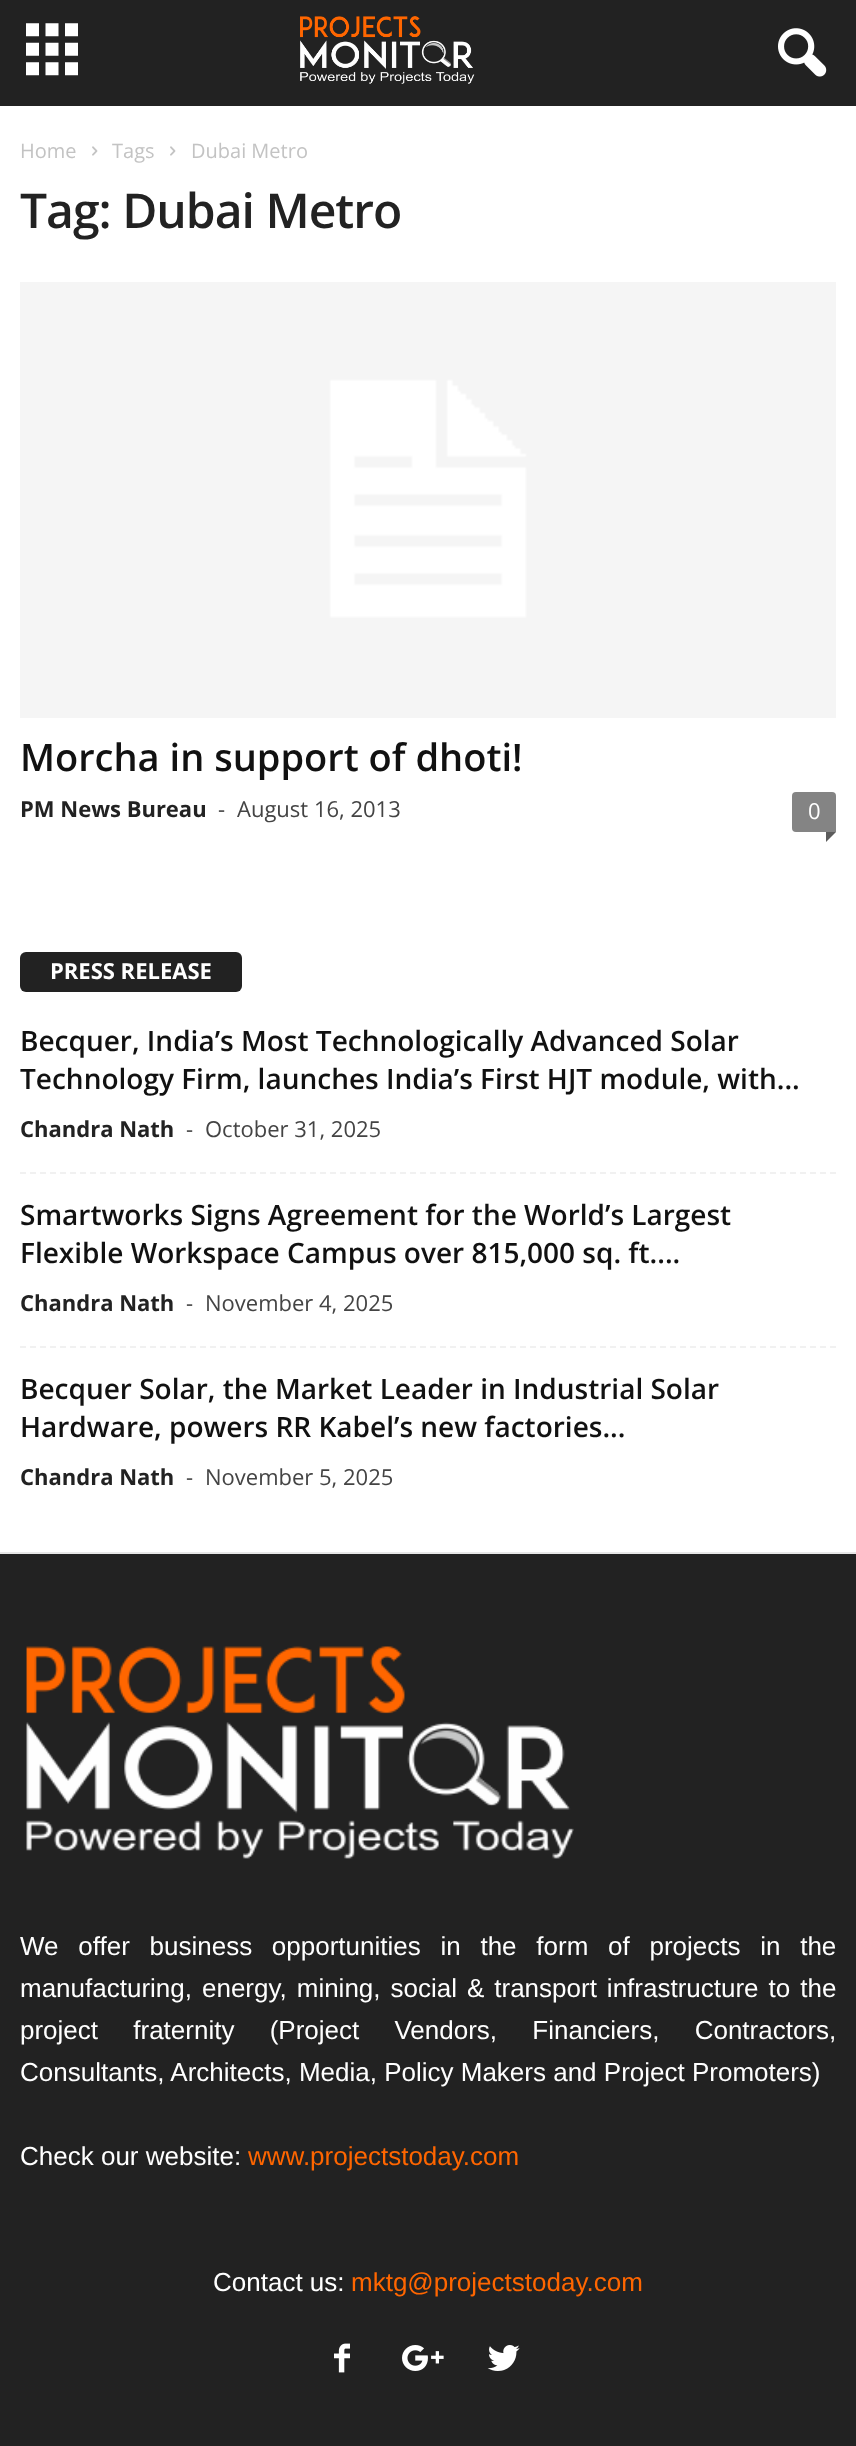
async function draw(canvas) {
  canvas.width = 856
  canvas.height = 2446
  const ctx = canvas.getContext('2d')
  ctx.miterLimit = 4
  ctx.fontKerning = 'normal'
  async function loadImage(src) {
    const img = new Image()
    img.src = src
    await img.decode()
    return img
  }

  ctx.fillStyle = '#fff'
  ctx.fillRect(0, 0, 856, 2446)
  ctx.fillStyle = '#222'
  ctx.fillRect(0, 0, 856, 106)
  ctx.drawImage(await loadImage('image0.png'), 26, 23, 52, 53)
  ctx.drawImage(await loadImage('image1.png'), 300, 16, 175, 68)
  ctx.drawImage(await loadImage('image2.png'), 778, 28, 49, 49)
  ctx.fillStyle = '#e6e6e6'
  ctx.fillRect(0, 1552, 856, 2)
  ctx.font = '20px Open Sans'
  ctx.fillStyle = '#c3c3c3'
  ctx.fillText('Home', 20, 158)
  ctx.drawImage(await loadImage('image3.png'), 92, 146, 6, 10)
  ctx.fillText('Tags', 112, 158)
  ctx.drawImage(await loadImage('image3.png'), 170, 146, 6, 10)
  ctx.fillText('Dubai Metro', 191, 158)
  ctx.letterSpacing = '-1px'
  ctx.font = '600 48px Open Sans'
  ctx.fillStyle = '#222'
  ctx.fillText('Tag: Dubai Metro', 20, 228)
  ctx.drawImage(await loadImage('image4.png'), 20, 282, 816, 436)
  ctx.letterSpacing = '0px'
  ctx.font = '600 38px Open Sans'
  ctx.fillStyle = '#111'
  ctx.fillText('Morcha in support of dhoti!', 20, 771)
  ctx.font = 'bold 22px Open Sans'
  ctx.fillStyle = '#222'
  ctx.fillText('PM News Bureau', 20, 817)
  ctx.font = '22px Open Sans'
  ctx.fillStyle = '#444'
  ctx.fillText('-', 218, 817)
  ctx.fillText('August 16, 2013', 237, 817)
  ctx.fillStyle = '#848484'
  ctx.beginPath()
  ctx.roundRect(792, 792, 44, 40, [4, 4, 0, 4])
  ctx.fill()
  ctx.fillStyle = '#fff'
  ctx.fillText('0', 808, 819)
  ctx.fillStyle = '#5b5b5b'
  ctx.beginPath()
  ctx.moveTo(826, 832)
  ctx.lineTo(836, 832)
  ctx.lineTo(826, 842)
  ctx.closePath()
  ctx.fill()
  ctx.fillStyle = '#222'
  ctx.beginPath()
  ctx.roundRect(20, 952, 222, 40, 6)
  ctx.fill()
  ctx.font = 'bold 22px Open Sans'
  ctx.fillStyle = '#fff'
  ctx.fillText('PRESS RELEASE', 50, 979)
  ctx.beginPath()
  ctx.moveTo(20, 1173)
  ctx.lineTo(836, 1173)
  ctx.strokeStyle = '#f1f1f1'
  ctx.lineWidth = 2
  ctx.setLineDash([6, 4])
  ctx.stroke()
  ctx.font = '600 28px Open Sans'
  ctx.fillStyle = '#111'
  ctx.fillText('Becquer, India’s Most Technologically Advanced Solar', 20, 1051)
  ctx.fillText('Technology Firm, launches India’s First HJT module, with...', 20, 1089)
  ctx.font = 'bold 22px Open Sans'
  ctx.fillStyle = '#222'
  ctx.fillText('Chandra Nath', 20, 1137)
  ctx.font = '22px Open Sans'
  ctx.fillStyle = '#444'
  ctx.fillText('-', 186, 1137)
  ctx.fillText('October 31, 2025', 205, 1137)
  ctx.beginPath()
  ctx.moveTo(20, 1347)
  ctx.lineTo(836, 1347)
  ctx.stroke()
  ctx.font = '600 28px Open Sans'
  ctx.fillStyle = '#111'
  ctx.fillText('Smartworks Signs Agreement for the World’s Largest', 20, 1225)
  ctx.fillText('Flexible Workspace Campus over 815,000 sq. ft....', 20, 1263)
  ctx.font = 'bold 22px Open Sans'
  ctx.fillStyle = '#222'
  ctx.fillText('Chandra Nath', 20, 1311)
  ctx.font = '22px Open Sans'
  ctx.fillStyle = '#444'
  ctx.fillText('-', 186, 1311)
  ctx.fillText('November 4, 2025', 205, 1311)
  ctx.font = '600 28px Open Sans'
  ctx.fillStyle = '#111'
  ctx.fillText('Becquer Solar, the Market Leader in Industrial Solar', 20, 1399)
  ctx.fillText('Hardware, powers RR Kabel’s new factories...', 20, 1437)
  ctx.font = 'bold 22px Open Sans'
  ctx.fillStyle = '#222'
  ctx.fillText('Chandra Nath', 20, 1485)
  ctx.font = '22px Open Sans'
  ctx.fillStyle = '#444'
  ctx.fillText('-', 186, 1485)
  ctx.fillText('November 5, 2025', 205, 1485)
  ctx.fillStyle = '#222'
  ctx.fillRect(0, 1554, 856, 892)
  ctx.drawImage(await loadImage('image5.png'), 26, 1646, 548, 213)
  ctx.wordSpacing = '12.5px'
  ctx.font = '26px Liberation Sans'
  ctx.fillStyle = '#fff'
  ctx.fillText('We offer business opportunities in the form of projects in the', 20, 1955)
  ctx.wordSpacing = '2.75px'
  ctx.fillText('manufacturing, energy, mining, social & transport infrastructure to the', 20, 1997)
  ctx.wordSpacing = '28px'
  ctx.fillText('project fraternity (Project Vendors, Financiers, Contractors,', 20, 2039)
  ctx.wordSpacing = '0px'
  ctx.fillText('Consultants, Architects, Media, Policy Makers and Project Promoters)', 20, 2081)
  ctx.fillText('Check our website:', 20, 2165)
  ctx.fillStyle = '#f60'
  ctx.fillText('www.projectstoday.com', 248, 2165)
  ctx.fillStyle = '#fff'
  ctx.fillText('Contact us:', 213, 2291)
  ctx.fillStyle = '#f60'
  ctx.fillText('mktg@projectstoday.com', 351, 2291)
  ctx.drawImage(await loadImage('image6.png'), 334, 2343, 16, 30)
  ctx.drawImage(await loadImage('image7.png'), 402, 2345, 42, 26)
  ctx.drawImage(await loadImage('image8.png'), 487, 2345, 33, 26)
}

draw(document.querySelector('canvas'))
